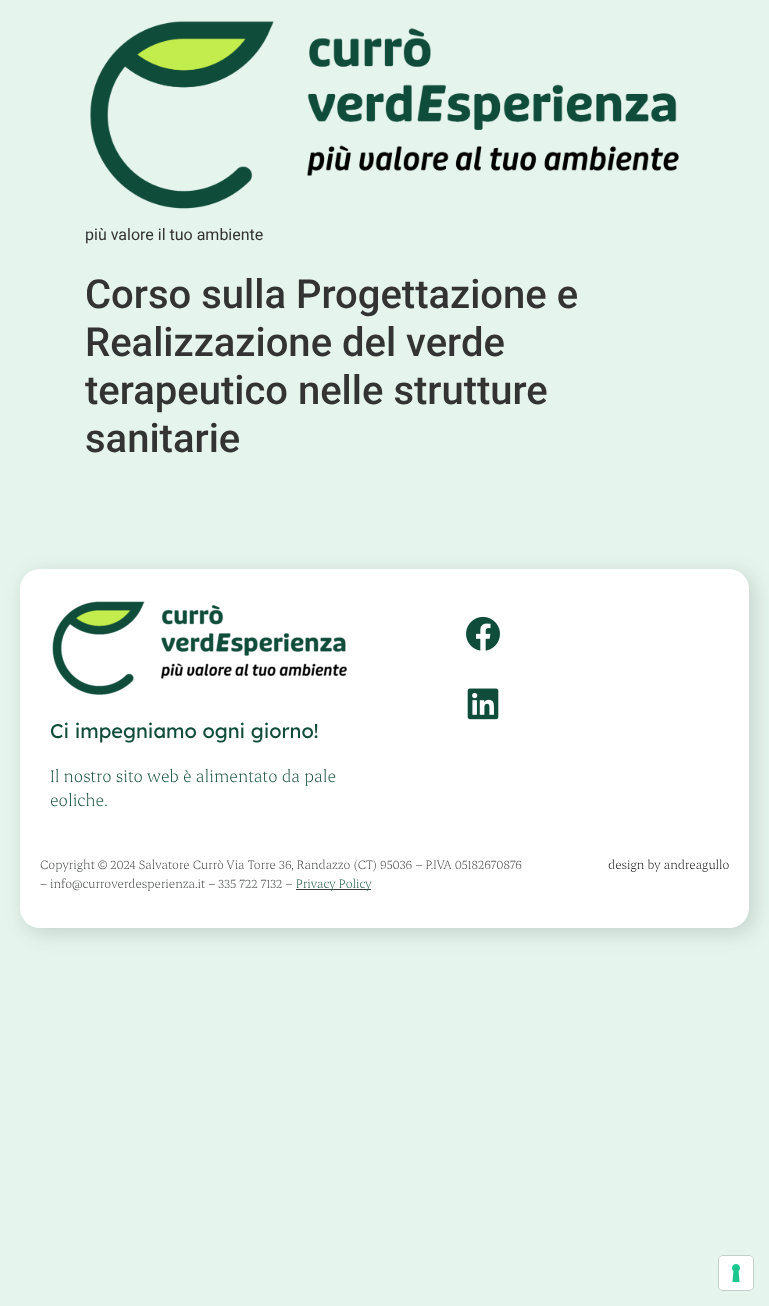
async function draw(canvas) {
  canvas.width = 769
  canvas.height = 1306
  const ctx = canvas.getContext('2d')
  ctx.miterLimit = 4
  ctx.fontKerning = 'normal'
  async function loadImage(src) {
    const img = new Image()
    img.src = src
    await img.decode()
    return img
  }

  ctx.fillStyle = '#e5f4ed'
  ctx.fillRect(0, 0, 769, 1306)
  ctx.drawImage(await loadImage('image0.png'), 90, 21, 589, 188)
  ctx.font = '16px Roboto'
  ctx.fillStyle = '#333'
  ctx.fillText('più valore il tuo ambiente', 85, 240)
  ctx.font = '500 40px Roboto'
  ctx.fillText('Corso sulla Progettazione e', 85, 308)
  ctx.fillText('Realizzazione del verde', 85, 356)
  ctx.fillText('terapeutico nelle strutture', 85, 404)
  ctx.fillText('sanitarie', 85, 452)
  ctx.fillStyle = '#3a3d3c2e'
  ctx.filter = 'blur(10px)'
  ctx.beginPath()
  ctx.roundRect(25, 574, 729, 359, 20)
  ctx.fill()
  ctx.filter = 'none'
  ctx.fillStyle = '#fff'
  ctx.beginPath()
  ctx.roundRect(20, 569, 729, 359, 20)
  ctx.fill()
  ctx.drawImage(await loadImage('image1.png'), 466, 616, 34, 35)
  ctx.drawImage(await loadImage('image2.png'), 467, 688, 32, 32)
  ctx.drawImage(await loadImage('image3.png'), 52, 601, 295, 94)
  ctx.font = '500 20px Readex Pro'
  ctx.fillStyle = '#104c3a'
  ctx.fillText('Ci impegniamo ogni giorno!', 50, 738)
  ctx.font = '300 19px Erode'
  ctx.fillText('Il nostro sito web è alimentato da pale', 50, 782)
  ctx.fillText('eoliche.', 50, 806)
  ctx.font = '300 14px Erode'
  ctx.fillStyle = '#3a3d3c'
  ctx.fillText('Copyright © 2024 Salvatore Currò Via Torre 36, Randazzo (CT) 95036 – P.IVA 05182670876', 40, 869)
  ctx.fillText('– info@curroverdesperienza.it – 335 722 7132 –', 40, 888)
  ctx.fillRect(296, 889, 75, 1)
  ctx.fillStyle = '#104c3a'
  ctx.fillText('Privacy Policy', 296, 888)
  ctx.fillStyle = '#000'
  ctx.fillText('design by andreagullo', 608, 869)
  ctx.beginPath()
  ctx.roundRect(718.5, 1255.5, 35, 35, 4.5)
  ctx.strokeStyle = '#c3cfc9'
  ctx.stroke()
  ctx.fillStyle = '#fff'
  ctx.beginPath()
  ctx.roundRect(719, 1256, 34, 34, 4)
  ctx.fill()
  ctx.drawImage(await loadImage('image4.png'), 732, 1264, 8, 18)
}

draw(document.querySelector('canvas'))
